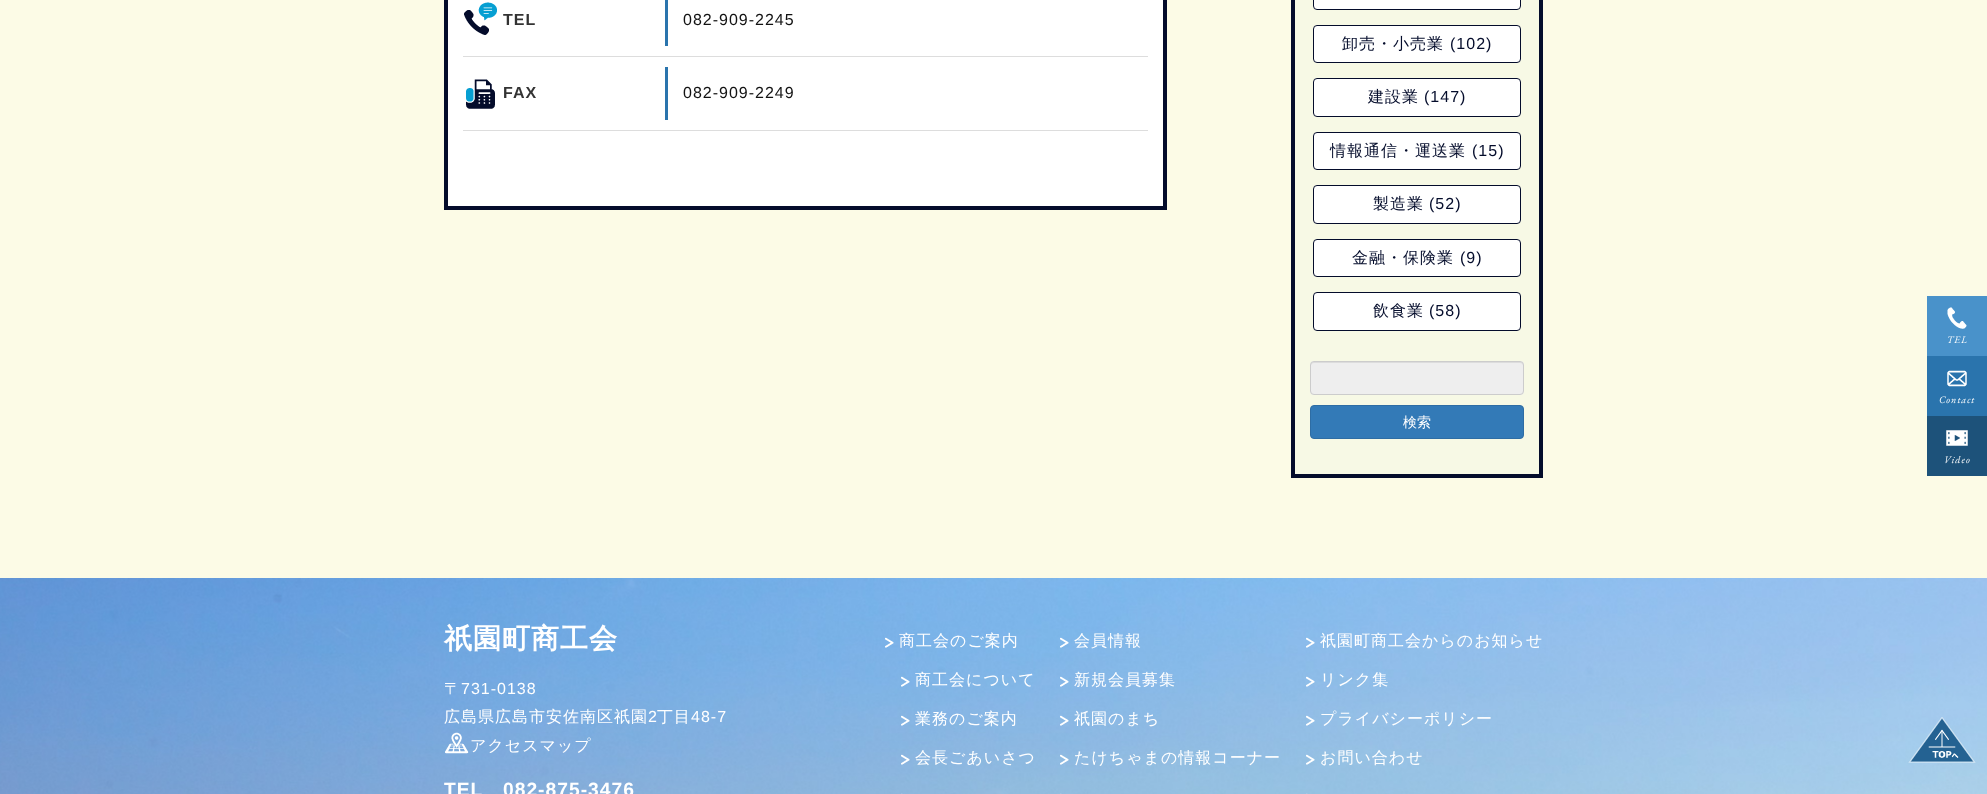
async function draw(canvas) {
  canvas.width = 1987
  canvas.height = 794
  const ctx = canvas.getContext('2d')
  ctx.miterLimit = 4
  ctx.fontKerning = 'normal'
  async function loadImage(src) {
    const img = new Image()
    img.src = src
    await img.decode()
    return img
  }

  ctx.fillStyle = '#fcfbe6'
  ctx.fillRect(0, 0, 1987, 794)
  ctx.fillStyle = '#fff'
  ctx.beginPath()
  ctx.rect(446, -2, 719, 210)
  ctx.fill()
  ctx.strokeStyle = '#040c2b'
  ctx.lineWidth = 4
  ctx.stroke()
  ctx.fillStyle = '#ddd'
  ctx.fillRect(463, 56, 685, 1)
  ctx.fillStyle = '#2a74ad'
  ctx.fillRect(665, 0, 3, 46)
  ctx.drawImage(await loadImage('image0.png'), 464, 2, 33, 33)
  ctx.letterSpacing = '1px'
  ctx.font = 'bold 16px Liberation Sans'
  ctx.fillStyle = '#333'
  ctx.fillText('TEL', 503, 25)
  ctx.font = '16px Liberation Sans'
  ctx.fillStyle = '#121212'
  ctx.fillText('082-909-2245', 683, 25)
  ctx.fillStyle = '#ddd'
  ctx.fillRect(463, 130, 685, 1)
  ctx.fillStyle = '#2a74ad'
  ctx.fillRect(665, 67, 3, 53)
  ctx.drawImage(await loadImage('image1.png'), 466, 79, 29, 30)
  ctx.font = 'bold 16px Liberation Sans'
  ctx.fillStyle = '#333'
  ctx.fillText('FAX', 503, 98)
  ctx.font = '16px Liberation Sans'
  ctx.fillStyle = '#121212'
  ctx.fillText('082-909-2249', 683, 98)
  ctx.fillStyle = '#f7f9e5'
  ctx.beginPath()
  ctx.rect(1293, -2, 248, 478)
  ctx.fill()
  ctx.stroke()
  ctx.fillStyle = '#fff'
  ctx.beginPath()
  ctx.roundRect(1313.5, -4.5, 207, 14, 3.5)
  ctx.fill()
  ctx.lineWidth = 1
  ctx.stroke()
  ctx.beginPath()
  ctx.roundRect(1313.5, 25.5, 207, 37, 3.5)
  ctx.fill()
  ctx.stroke()
  ctx.font = '500 16px WenQuanYi Zen Hei'
  ctx.fillStyle = '#040c2b'
  ctx.fillText('卸売・小売業', 1342, 49)
  ctx.font = '16px Liberation Sans'
  ctx.fillText('(102)', 1450, 49)
  ctx.fillStyle = '#fff'
  ctx.beginPath()
  ctx.roundRect(1313.5, 78.5, 207, 38, 3.5)
  ctx.fill()
  ctx.stroke()
  ctx.font = '500 16px WenQuanYi Zen Hei'
  ctx.fillStyle = '#040c2b'
  ctx.fillText('建設業', 1368, 102)
  ctx.font = '16px Liberation Sans'
  ctx.fillText('(147)', 1424, 102)
  ctx.fillStyle = '#fff'
  ctx.beginPath()
  ctx.roundRect(1313.5, 132.5, 207, 37, 3.5)
  ctx.fill()
  ctx.stroke()
  ctx.font = '500 16px WenQuanYi Zen Hei'
  ctx.fillStyle = '#040c2b'
  ctx.fillText('情報通信・運送業', 1330, 156)
  ctx.font = '16px Liberation Sans'
  ctx.fillText('(15)', 1472, 156)
  ctx.fillStyle = '#fff'
  ctx.beginPath()
  ctx.roundRect(1313.5, 185.5, 207, 38, 3.5)
  ctx.fill()
  ctx.stroke()
  ctx.font = '500 16px WenQuanYi Zen Hei'
  ctx.fillStyle = '#040c2b'
  ctx.fillText('製造業', 1373, 209)
  ctx.font = '16px Liberation Sans'
  ctx.fillText('(52)', 1429, 209)
  ctx.fillStyle = '#fff'
  ctx.beginPath()
  ctx.roundRect(1313.5, 239.5, 207, 37, 3.5)
  ctx.fill()
  ctx.stroke()
  ctx.font = '500 16px WenQuanYi Zen Hei'
  ctx.fillStyle = '#040c2b'
  ctx.fillText('金融・保険業', 1352, 263)
  ctx.font = '16px Liberation Sans'
  ctx.fillText('(9)', 1460, 263)
  ctx.fillStyle = '#fff'
  ctx.beginPath()
  ctx.roundRect(1313.5, 292.5, 207, 38, 3.5)
  ctx.fill()
  ctx.stroke()
  ctx.font = '500 16px WenQuanYi Zen Hei'
  ctx.fillStyle = '#040c2b'
  ctx.fillText('飲食業', 1373, 316)
  ctx.font = '16px Liberation Sans'
  ctx.fillText('(58)', 1429, 316)
  ctx.fillStyle = '#eee'
  ctx.beginPath()
  ctx.roundRect(1310, 361, 214, 34, 4)
  ctx.fill()
  ctx.fillStyle = '#dcdcdc'
  ctx.beginPath()
  ctx.moveTo(1314, 363)
  ctx.lineTo(1520, 363)
  ctx.bezierCurveTo(1522, 363, 1523, 364, 1523, 366)
  ctx.lineTo(1523, 365)
  ctx.bezierCurveTo(1523, 363, 1522, 362, 1520, 362)
  ctx.lineTo(1314, 362)
  ctx.bezierCurveTo(1312, 362, 1311, 363, 1311, 365)
  ctx.lineTo(1311, 366)
  ctx.bezierCurveTo(1311, 364, 1312, 363, 1314, 363)
  ctx.closePath()
  ctx.fill()
  ctx.beginPath()
  ctx.roundRect(1310.5, 361.5, 213, 33, 3.5)
  ctx.strokeStyle = '#ccc'
  ctx.stroke()
  ctx.fillStyle = '#337ab7'
  ctx.beginPath()
  ctx.roundRect(1310.5, 405.5, 213, 33, 3.5)
  ctx.fill()
  ctx.strokeStyle = '#2e6da4'
  ctx.stroke()
  ctx.letterSpacing = '0px'
  ctx.font = '500 14px WenQuanYi Zen Hei'
  ctx.fillStyle = '#fff'
  ctx.fillText('検索', 1403, 427)
  ctx.fillStyle = '#4992ca'
  ctx.fillRect(1927, 296, 60, 60)
  ctx.drawImage(await loadImage('image2.png'), 1947, 307, 20, 22)
  ctx.letterSpacing = '1px'
  ctx.font = 'italic 10px EB Garamond'
  ctx.fillStyle = '#fff'
  ctx.fillText('TEL', 1947, 343)
  ctx.fillStyle = '#2a74ad'
  ctx.fillRect(1927, 356, 60, 60)
  ctx.drawImage(await loadImage('image3.png'), 1947, 370, 20, 17)
  ctx.fillStyle = '#fff'
  ctx.fillText('Contact', 1939, 403)
  ctx.fillStyle = '#1d527a'
  ctx.fillRect(1927, 416, 60, 60)
  ctx.drawImage(await loadImage('image4.png'), 1946, 430, 22, 16)
  ctx.fillStyle = '#fff'
  ctx.fillText('Video', 1944, 463)
  ctx.drawImage(await loadImage('image5.png'), 0, 578, 1987, 216)
  ctx.font = 'bold 28px WenQuanYi Zen Hei'
  ctx.fillText('祇園町商工会', 444, 648)
  ctx.font = '500 16px WenQuanYi Zen Hei'
  ctx.fillText('〒', 444, 694)
  ctx.font = '16px Liberation Sans'
  ctx.fillText('731-0138', 461, 694)
  ctx.font = '500 16px WenQuanYi Zen Hei'
  ctx.fillText('広島県広島市安佐南区祇園', 444, 722)
  ctx.font = '16px Liberation Sans'
  ctx.fillText('2', 648, 722)
  ctx.font = '500 16px WenQuanYi Zen Hei'
  ctx.fillText('丁目', 657, 722)
  ctx.font = '16px Liberation Sans'
  ctx.fillText('48-7', 691, 722)
  ctx.drawImage(await loadImage('image6.png'), 445, 732, 24, 22)
  ctx.font = '500 16px WenQuanYi Zen Hei'
  ctx.fillText('アクセスマップ', 470, 751)
  ctx.font = 'bold 19.25px Liberation Sans'
  ctx.fillText('TEL', 444, 796)
  ctx.fillText('082-875-3476', 503, 796)
  ctx.drawImage(await loadImage('image7.png'), 885, 637, 9, 11)
  ctx.font = '500 16px WenQuanYi Zen Hei'
  ctx.fillText('商工会のご案内', 899, 646)
  ctx.drawImage(await loadImage('image8.png'), 901, 676, 9, 11)
  ctx.fillText('商工会について', 915, 685)
  ctx.drawImage(await loadImage('image9.png'), 901, 715, 9, 11)
  ctx.fillText('業務のご案内', 915, 724)
  ctx.drawImage(await loadImage('image10.png'), 901, 754, 9, 11)
  ctx.fillText('会長ごあいさつ', 915, 763)
  ctx.drawImage(await loadImage('image11.png'), 901, 793, 2, 1)
  ctx.drawImage(await loadImage('image12.png'), 1060, 637, 9, 11)
  ctx.fillText('会員情報', 1074, 646)
  ctx.drawImage(await loadImage('image13.png'), 1060, 676, 9, 11)
  ctx.fillText('新規会員募集', 1074, 685)
  ctx.drawImage(await loadImage('image14.png'), 1060, 715, 9, 11)
  ctx.fillText('祇園のまち', 1074, 724)
  ctx.drawImage(await loadImage('image15.png'), 1060, 754, 9, 11)
  ctx.fillText('たけちゃまの情報コーナー', 1074, 763)
  ctx.drawImage(await loadImage('image16.png'), 1060, 793, 2, 1)
  ctx.drawImage(await loadImage('image17.png'), 1306, 637, 9, 11)
  ctx.fillText('祇園町商工会からのお知らせ', 1320, 646)
  ctx.drawImage(await loadImage('image18.png'), 1306, 676, 9, 11)
  ctx.fillText('リンク集', 1320, 685)
  ctx.drawImage(await loadImage('image19.png'), 1306, 715, 9, 11)
  ctx.fillText('プライバシーポリシー', 1320, 724)
  ctx.drawImage(await loadImage('image20.png'), 1306, 754, 9, 11)
  ctx.fillText('お問い合わせ', 1320, 763)
  ctx.drawImage(await loadImage('image21.png'), 1306, 793, 2, 1)
  ctx.drawImage(await loadImage('image22.png'), 1908, 717, 68, 46)
}

draw(document.querySelector('canvas'))
